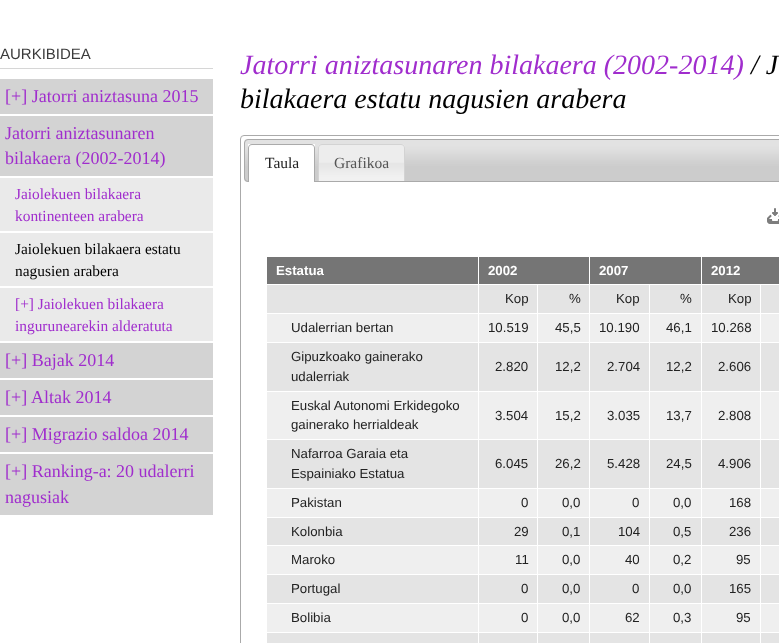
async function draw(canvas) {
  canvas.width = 779
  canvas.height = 643
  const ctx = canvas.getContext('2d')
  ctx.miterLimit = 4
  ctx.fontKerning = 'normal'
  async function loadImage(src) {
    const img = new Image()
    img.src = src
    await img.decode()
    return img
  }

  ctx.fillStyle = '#fff'
  ctx.fillRect(0, 0, 779, 643)
  ctx.fillStyle = '#d6d6d6'
  ctx.fillRect(0, 68, 213, 1)
  ctx.font = '15px Liberation Sans'
  ctx.fillStyle = '#3b3b3b'
  ctx.fillText('AURKIBIDEA', 0, 59)
  ctx.fillStyle = '#d3d3d3'
  ctx.fillRect(0, 79, 213, 35)
  ctx.font = '18px Liberation Serif'
  ctx.fillStyle = '#a02dcd'
  ctx.fillText('[+] Jatorri aniztasuna 2015', 5, 102)
  ctx.fillStyle = '#d3d3d3'
  ctx.fillRect(0, 116, 213, 60)
  ctx.fillStyle = '#a02dcd'
  ctx.fillText('Jatorri aniztasunaren', 5, 139)
  ctx.fillText('bilakaera (2002-2014)', 5, 164)
  ctx.fillStyle = '#eaeaea'
  ctx.fillRect(0, 178, 213, 53)
  ctx.font = '15.4px Liberation Serif'
  ctx.fillStyle = '#a02dcd'
  ctx.fillText('Jaiolekuen bilakaera', 15, 199)
  ctx.fillText('kontinenteen arabera', 15, 221)
  ctx.fillStyle = '#eaeaea'
  ctx.fillRect(0, 233, 213, 53)
  ctx.fillStyle = '#000'
  ctx.fillText('Jaiolekuen bilakaera estatu', 15, 254)
  ctx.fillText('nagusien arabera', 15, 276)
  ctx.fillStyle = '#eaeaea'
  ctx.fillRect(0, 288, 213, 53)
  ctx.fillStyle = '#a02dcd'
  ctx.fillText('[+] Jaiolekuen bilakaera', 15, 309)
  ctx.fillText('ingurunearekin alderatuta', 15, 331)
  ctx.fillStyle = '#d3d3d3'
  ctx.fillRect(0, 343, 213, 35)
  ctx.font = '18px Liberation Serif'
  ctx.fillStyle = '#a02dcd'
  ctx.fillText('[+] Bajak 2014', 5, 366)
  ctx.fillStyle = '#d3d3d3'
  ctx.fillRect(0, 380, 213, 35)
  ctx.fillStyle = '#a02dcd'
  ctx.fillText('[+]', 5, 403)
  ctx.fillText('Altak 2014', 31, 403)
  ctx.fillStyle = '#d3d3d3'
  ctx.fillRect(0, 417, 213, 35)
  ctx.fillStyle = '#a02dcd'
  ctx.fillText('[+] Migrazio saldoa 2014', 5, 440)
  ctx.fillStyle = '#d3d3d3'
  ctx.fillRect(0, 454, 213, 61)
  ctx.fillStyle = '#a02dcd'
  ctx.fillText('[+] Ranking-a: 20 udalerri', 5, 477)
  ctx.fillText('nagusiak', 5, 503)
  ctx.font = 'italic 28px Liberation Serif'
  ctx.fillText('Jatorri aniztasunaren bilakaera (2002-2014)', 240, 74)
  ctx.fillStyle = '#000'
  ctx.fillText('/ J', 751, 74)
  ctx.fillText('bilakaera estatu nagusien arabera', 240, 108)
  ctx.beginPath()
  ctx.roundRect(240.5, 135.5, 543, 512, 3.5)
  ctx.strokeStyle = '#aaa'
  ctx.stroke()
  ctx.drawImage(await loadImage('image0.png'), 244, 139, 535, 43)
  ctx.beginPath()
  ctx.roundRect(244.5, 139.5, 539, 42, 3.5)
  ctx.stroke()
  ctx.fillStyle = '#fff'
  ctx.fillRect(248, 147, 67, 35)
  ctx.fillStyle = '#fefefe'
  ctx.fillRect(248, 144, 67, 3)
  ctx.fillStyle = '#aaa'
  ctx.beginPath()
  ctx.moveTo(252, 144)
  ctx.lineTo(311, 144)
  ctx.bezierCurveTo(313, 144, 315, 146, 315, 148)
  ctx.lineTo(315, 182)
  ctx.lineTo(248, 182)
  ctx.lineTo(248, 148)
  ctx.bezierCurveTo(248, 146, 250, 144, 252, 144)
  ctx.closePath()
  ctx.moveTo(252, 145)
  ctx.lineTo(311, 145)
  ctx.bezierCurveTo(313, 145, 314, 146, 314, 148)
  ctx.lineTo(314, 182)
  ctx.lineTo(249, 182)
  ctx.lineTo(249, 148)
  ctx.bezierCurveTo(249, 146, 250, 145, 252, 145)
  ctx.closePath()
  ctx.fill('evenodd')
  ctx.font = '15.5px Liberation Serif'
  ctx.fillStyle = '#222'
  ctx.fillText('Taula', 265, 168)
  ctx.drawImage(await loadImage('image1.png'), 318, 144, 87, 37)
  ctx.fillStyle = '#d3d3d3'
  ctx.beginPath()
  ctx.moveTo(322, 144)
  ctx.lineTo(401, 144)
  ctx.bezierCurveTo(403, 144, 405, 146, 405, 148)
  ctx.lineTo(405, 181)
  ctx.lineTo(318, 181)
  ctx.lineTo(318, 148)
  ctx.bezierCurveTo(318, 146, 320, 144, 322, 144)
  ctx.closePath()
  ctx.moveTo(322, 145)
  ctx.lineTo(401, 145)
  ctx.bezierCurveTo(403, 145, 404, 146, 404, 148)
  ctx.lineTo(404, 181)
  ctx.lineTo(319, 181)
  ctx.lineTo(319, 148)
  ctx.bezierCurveTo(319, 146, 320, 145, 322, 145)
  ctx.closePath()
  ctx.fill('evenodd')
  ctx.fillStyle = '#555'
  ctx.fillText('Grafikoa', 334, 168)
  ctx.drawImage(await loadImage('image2.png'), 767, 208, 12, 16)
  ctx.fillStyle = '#757575'
  ctx.fillRect(267, 257, 211, 27)
  ctx.font = 'bold 13.25px Liberation Sans'
  ctx.fillStyle = '#fff'
  ctx.fillText('Estatua', 276, 275)
  ctx.fillStyle = '#757575'
  ctx.fillRect(479, 257, 110, 27)
  ctx.fillStyle = '#fff'
  ctx.fillText('2002', 488, 275)
  ctx.fillStyle = '#757575'
  ctx.fillRect(590, 257, 111, 27)
  ctx.fillStyle = '#fff'
  ctx.fillText('2007', 599, 275)
  ctx.fillStyle = '#757575'
  ctx.fillRect(702, 257, 77, 27)
  ctx.fillStyle = '#fff'
  ctx.fillText('2012', 711, 275)
  ctx.fillStyle = '#e4e4e4'
  ctx.fillRect(267, 633, 512, 10)
  ctx.fillRect(267, 285, 512, 28)
  ctx.fillStyle = '#efefef'
  ctx.fillRect(267, 314, 512, 28)
  ctx.fillStyle = '#e4e4e4'
  ctx.fillRect(267, 343, 512, 48)
  ctx.fillStyle = '#efefef'
  ctx.fillRect(267, 392, 512, 47)
  ctx.fillStyle = '#e4e4e4'
  ctx.fillRect(267, 440, 512, 48)
  ctx.fillStyle = '#efefef'
  ctx.fillRect(267, 489, 512, 28)
  ctx.fillStyle = '#e4e4e4'
  ctx.fillRect(267, 518, 512, 27)
  ctx.fillStyle = '#efefef'
  ctx.fillRect(267, 546, 512, 28)
  ctx.fillStyle = '#e4e4e4'
  ctx.fillRect(267, 575, 512, 28)
  ctx.fillStyle = '#efefef'
  ctx.fillRect(267, 604, 512, 28)
  ctx.fillStyle = '#fff'
  ctx.fillRect(478, 284, 1, 359)
  ctx.fillRect(537, 284, 1, 359)
  ctx.fillRect(589, 284, 1, 359)
  ctx.fillRect(649, 284, 1, 359)
  ctx.fillRect(701, 284, 1, 359)
  ctx.fillRect(760, 284, 1, 359)
  ctx.font = '13.25px Liberation Sans'
  ctx.fillStyle = '#222'
  ctx.fillText('Kop', 505, 303)
  ctx.fillText('%', 569, 303)
  ctx.fillText('Kop', 616, 303)
  ctx.fillText('%', 680, 303)
  ctx.fillText('Kop', 728, 303)
  ctx.fillText('Udalerrian bertan', 291, 332)
  ctx.fillText('10.519', 488, 332)
  ctx.fillText('45,5', 555, 332)
  ctx.fillText('10.190', 599, 332)
  ctx.fillText('46,1', 666, 332)
  ctx.fillText('10.268', 711, 332)
  ctx.fillText('Gipuzkoako gainerako', 291, 361)
  ctx.fillText('udalerriak', 291, 381)
  ctx.fillText('2.820', 495, 371)
  ctx.fillText('12,2', 555, 371)
  ctx.fillText('2.704', 607, 371)
  ctx.fillText('12,2', 666, 371)
  ctx.fillText('2.606', 718, 371)
  ctx.fillText('Euskal Autonomi Erkidegoko', 291, 410)
  ctx.fillText('gainerako herrialdeak', 291, 429)
  ctx.fillText('3.504', 495, 420)
  ctx.fillText('15,2', 555, 420)
  ctx.fillText('3.035', 607, 420)
  ctx.fillText('13,7', 666, 420)
  ctx.fillText('2.808', 718, 420)
  ctx.fillText('Nafarroa Garaia eta', 291, 458)
  ctx.fillText('Espainiako Estatua', 291, 478)
  ctx.fillText('6.045', 495, 468)
  ctx.fillText('26,2', 555, 468)
  ctx.fillText('5.428', 607, 468)
  ctx.fillText('24,5', 666, 468)
  ctx.fillText('4.906', 718, 468)
  ctx.fillText('Pakistan', 291, 507)
  ctx.fillText('0', 521, 507)
  ctx.fillText('0,0', 562, 507)
  ctx.fillText('0', 632, 507)
  ctx.fillText('0,0', 673, 507)
  ctx.fillText('168', 729, 507)
  ctx.fillText('Kolonbia', 291, 536)
  ctx.fillText('29', 514, 536)
  ctx.fillText('0,1', 562, 536)
  ctx.fillText('104', 618, 536)
  ctx.fillText('0,5', 673, 536)
  ctx.fillText('236', 729, 536)
  ctx.fillText('Maroko', 291, 564)
  ctx.fillText('11', 515, 564)
  ctx.fillText('0,0', 562, 564)
  ctx.fillText('40', 625, 564)
  ctx.fillText('0,2', 673, 564)
  ctx.fillText('95', 736, 564)
  ctx.fillText('Portugal', 291, 593)
  ctx.fillText('0', 521, 593)
  ctx.fillText('0,0', 562, 593)
  ctx.fillText('0', 632, 593)
  ctx.fillText('0,0', 673, 593)
  ctx.fillText('165', 729, 593)
  ctx.fillText('Bolibia', 291, 622)
  ctx.fillText('0', 521, 622)
  ctx.fillText('0,0', 562, 622)
  ctx.fillText('62', 625, 622)
  ctx.fillText('0,3', 673, 622)
  ctx.fillText('95', 736, 622)
}

draw(document.querySelector('canvas'))
